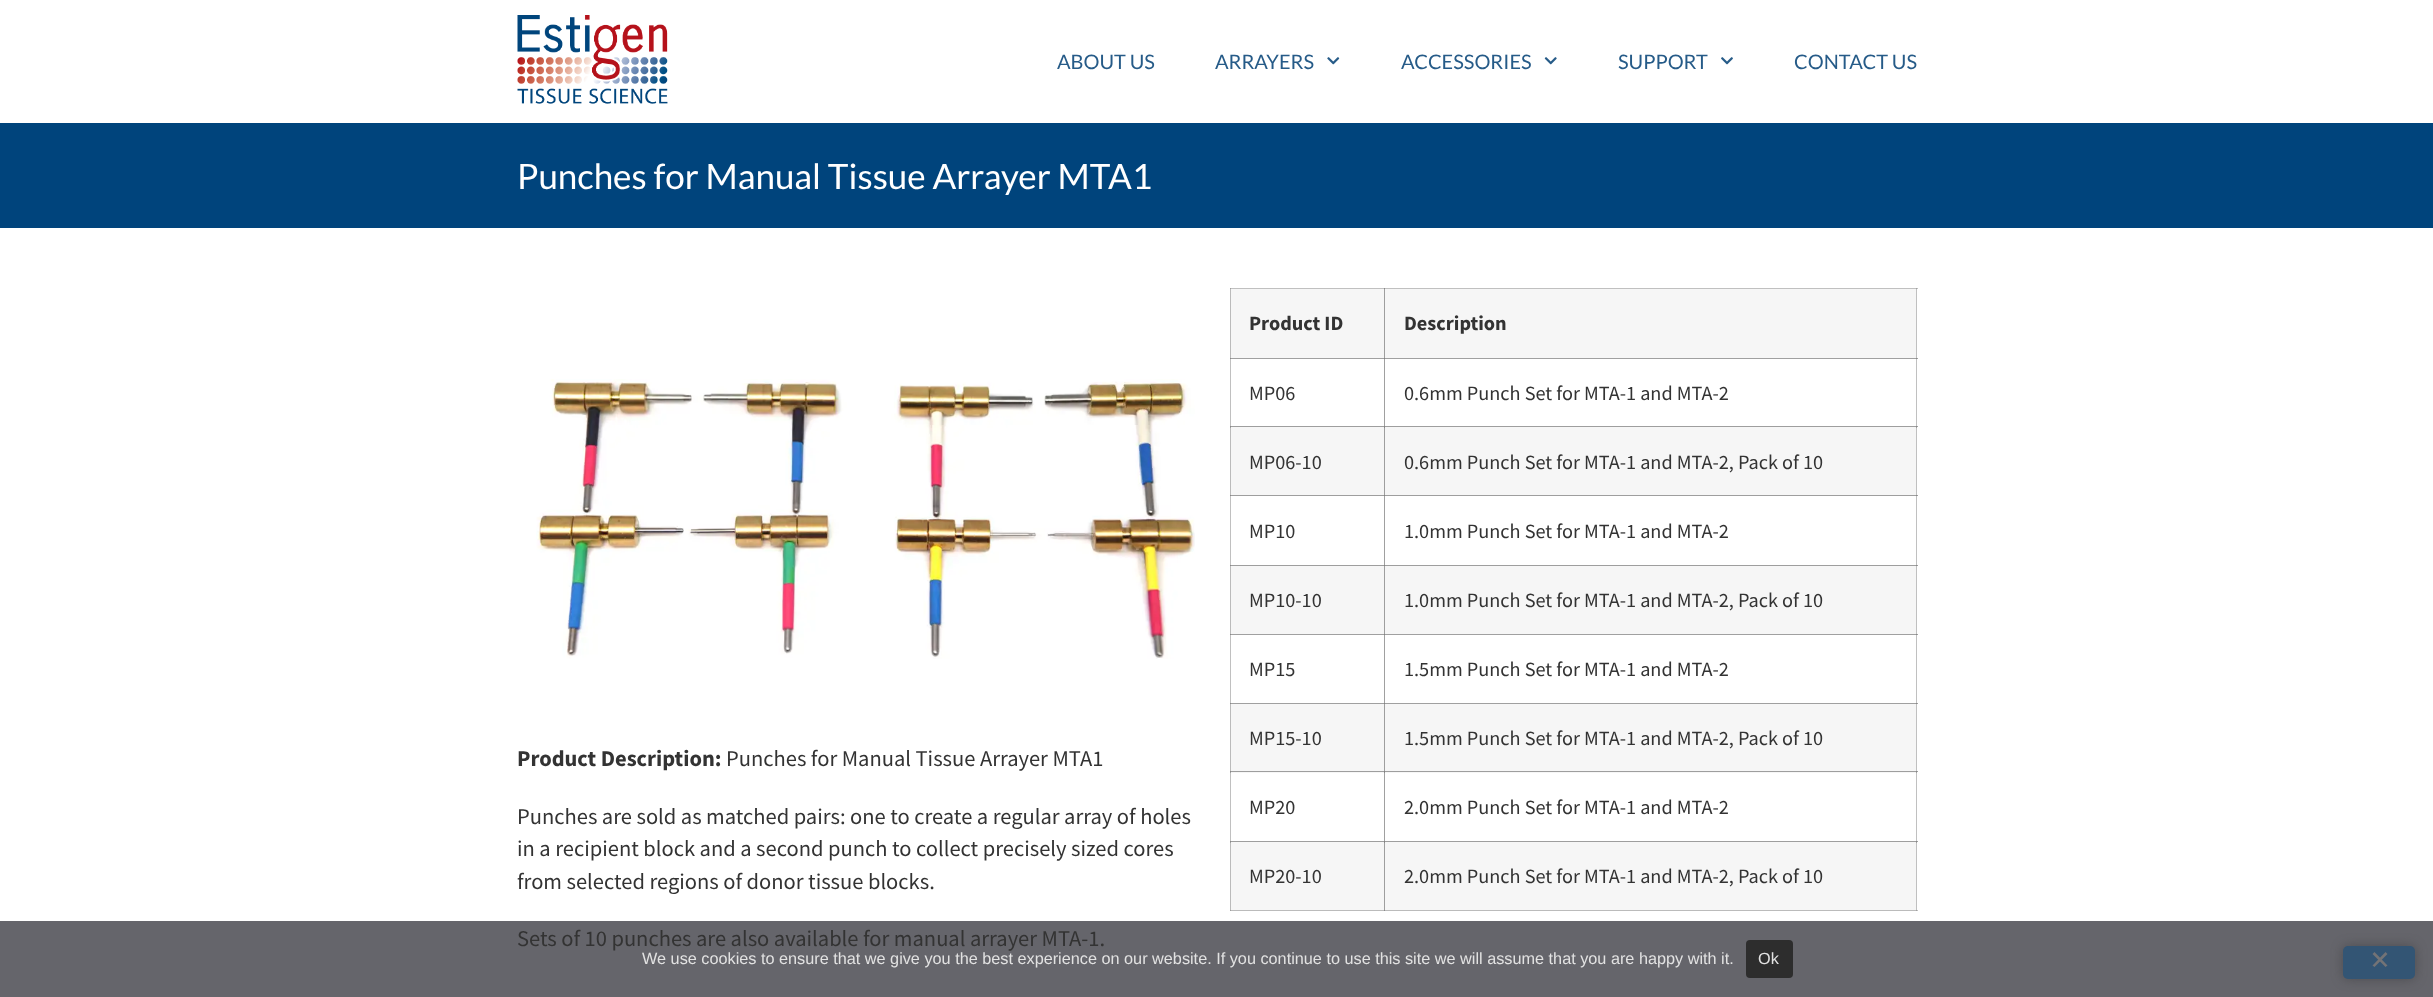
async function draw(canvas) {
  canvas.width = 2433
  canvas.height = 997
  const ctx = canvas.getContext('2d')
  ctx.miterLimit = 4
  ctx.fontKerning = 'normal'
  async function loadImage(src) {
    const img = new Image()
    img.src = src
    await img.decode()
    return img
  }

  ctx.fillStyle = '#fff'
  ctx.fillRect(0, 0, 2433, 997)
  ctx.fillStyle = '#65656b'
  ctx.fillRect(0, 921, 2433, 76)
  ctx.fillStyle = '#c0c0c0'
  ctx.fillRect(1230, 288, 155, 1)
  ctx.fillStyle = '#a0a0a0'
  ctx.fillRect(1230, 288, 1, 1)
  ctx.fillStyle = '#c0c0c0'
  ctx.fillRect(1916, 288, 1, 623)
  ctx.fillRect(1230, 358, 1, 70)
  ctx.fillStyle = '#a0a0a0'
  ctx.fillRect(1230, 358, 155, 1)
  ctx.fillStyle = '#888'
  ctx.fillRect(1230, 358, 1, 1)
  ctx.fillStyle = '#a0a0a0'
  ctx.fillRect(1384, 358, 1, 70)
  ctx.fillRect(1916, 426, 1, 2)
  ctx.fillRect(1917, 426, 1, 1)
  ctx.fillStyle = '#888'
  ctx.fillRect(1916, 426, 1, 1)
  ctx.fillStyle = '#c0c0c0'
  ctx.fillRect(1230, 495, 1, 71)
  ctx.fillStyle = '#a0a0a0'
  ctx.fillRect(1384, 495, 1, 71)
  ctx.fillRect(1917, 495, 1, 1)
  ctx.fillStyle = '#888'
  ctx.fillRect(1916, 495, 1, 1)
  ctx.fillStyle = '#a0a0a0'
  ctx.fillRect(1917, 565, 1, 1)
  ctx.fillStyle = '#888'
  ctx.fillRect(1916, 565, 1, 1)
  ctx.fillStyle = '#c0c0c0'
  ctx.fillRect(1230, 634, 1, 70)
  ctx.fillStyle = '#a0a0a0'
  ctx.fillRect(1230, 634, 155, 1)
  ctx.fillStyle = '#888'
  ctx.fillRect(1230, 634, 1, 1)
  ctx.fillStyle = '#a0a0a0'
  ctx.fillRect(1384, 634, 1, 70)
  ctx.fillRect(1230, 703, 688, 1)
  ctx.fillStyle = '#888'
  ctx.fillRect(1230, 703, 1, 1)
  ctx.fillStyle = '#c0c0c0'
  ctx.fillRect(1230, 771, 1, 72)
  ctx.fillStyle = '#a0a0a0'
  ctx.fillRect(1384, 771, 1, 72)
  ctx.fillRect(1916, 771, 1, 2)
  ctx.fillRect(1917, 771, 1, 1)
  ctx.fillStyle = '#888'
  ctx.fillRect(1916, 771, 1, 1)
  ctx.fillStyle = '#c0c0c0'
  ctx.fillRect(1917, 910, 1, 1)
  ctx.fillStyle = '#a0a0a0'
  ctx.fillRect(1916, 841, 1, 2)
  ctx.fillRect(1916, 910, 1, 1)
  ctx.fillRect(1917, 841, 1, 1)
  ctx.fillStyle = '#888'
  ctx.fillRect(1916, 841, 1, 1)
  ctx.drawImage(await loadImage('image0.png'), 517, 15, 151, 89)
  ctx.font = '20px Lato'
  ctx.fillStyle = '#265b88'
  ctx.fillText('ABOUT US', 1057, 69)
  ctx.fillText('ARRAYERS', 1215, 69)
  ctx.drawImage(await loadImage('image1.png'), 1327, 57, 13, 8)
  ctx.fillText('ACCESSORIES', 1401, 69)
  ctx.drawImage(await loadImage('image2.png'), 1544, 57, 13, 8)
  ctx.fillText('SUPPORT', 1618, 69)
  ctx.drawImage(await loadImage('image3.png'), 1721, 57, 12, 8)
  ctx.fillText('CONTACT US', 1794, 69)
  ctx.fillStyle = '#00447c'
  ctx.fillRect(0, 123, 2433, 105)
  ctx.font = '35px Lato'
  ctx.fillStyle = '#fff'
  ctx.fillText('Punches for Manual Tissue Arrayer MTA1', 517, 189)
  ctx.drawImage(await loadImage('image4.png'), 536, 379, 659, 280)
  ctx.font = 'bold 22.5px Source Sans Pro'
  ctx.fillStyle = '#333'
  ctx.fillText('Product Description:', 517, 766)
  ctx.font = '22.5px Source Sans Pro'
  ctx.fillText('Punches for Manual Tissue Arrayer MTA1', 726, 766)
  ctx.fillText('Punches are sold as matched pairs: one to create a regular array of holes', 517, 824)
  ctx.fillText('in a recipient block and a second punch to collect precisely sized cores', 517, 856)
  ctx.fillText('from selected regions of donor tissue blocks.', 517, 889)
  ctx.fillText('Sets of 10 punches are also available for manual arrayer MTA-1.', 517, 946)
  ctx.fillStyle = '#f6f6f6'
  ctx.fillRect(1231, 289, 153, 69)
  ctx.fillStyle = '#bbb'
  ctx.fillRect(1230, 289, 1, 69)
  ctx.fillStyle = '#9e9e9e'
  ctx.fillRect(1384, 289, 1, 69)
  ctx.font = 'bold 20.25px Source Sans Pro'
  ctx.fillStyle = '#333'
  ctx.fillText('Product ID', 1249, 330)
  ctx.fillStyle = '#f6f6f6'
  ctx.fillRect(1385, 289, 531, 69)
  ctx.fillStyle = '#c0c0c0'
  ctx.fillRect(1384, 288, 534, 1)
  ctx.fillStyle = '#888'
  ctx.fillRect(1384, 288, 1, 1)
  ctx.fillStyle = '#a0a0a0'
  ctx.fillRect(1916, 288, 1, 1)
  ctx.fillStyle = '#333'
  ctx.fillText('Description', 1404, 330)
  ctx.font = '20.25px Source Sans Pro'
  ctx.fillText('MP06', 1249, 400)
  ctx.fillStyle = '#a0a0a0'
  ctx.fillRect(1384, 358, 534, 1)
  ctx.fillStyle = '#818181'
  ctx.fillRect(1384, 358, 1, 1)
  ctx.fillStyle = '#888'
  ctx.fillRect(1916, 358, 1, 1)
  ctx.fillStyle = '#333'
  ctx.fillText('0.6mm Punch Set for MTA-1 and MTA-2', 1404, 400)
  ctx.fillStyle = '#f6f6f6'
  ctx.fillRect(1231, 427, 153, 68)
  ctx.fillStyle = '#bbb'
  ctx.fillRect(1230, 426, 1, 70)
  ctx.fillStyle = '#9e9e9e'
  ctx.fillRect(1230, 426, 1, 2)
  ctx.fillRect(1230, 426, 686, 1)
  ctx.fillStyle = '#888'
  ctx.fillRect(1230, 426, 1, 1)
  ctx.fillStyle = '#9e9e9e'
  ctx.fillRect(1384, 426, 1, 70)
  ctx.fillStyle = '#888'
  ctx.fillRect(1384, 426, 1, 2)
  ctx.fillStyle = '#818181'
  ctx.fillRect(1384, 426, 1, 1)
  ctx.fillStyle = '#9e9e9e'
  ctx.fillRect(1230, 495, 686, 1)
  ctx.fillStyle = '#888'
  ctx.fillRect(1230, 495, 1, 1)
  ctx.fillStyle = '#818181'
  ctx.fillRect(1384, 495, 1, 1)
  ctx.fillStyle = '#333'
  ctx.fillText('MP06-10', 1249, 469)
  ctx.fillStyle = '#f6f6f6'
  ctx.fillRect(1385, 427, 531, 68)
  ctx.fillStyle = '#333'
  ctx.fillText('0.6mm Punch Set for MTA-1 and MTA-2, Pack of 10', 1404, 469)
  ctx.fillText('MP10', 1249, 538)
  ctx.fillText('1.0mm Punch Set for MTA-1 and MTA-2', 1404, 538)
  ctx.fillStyle = '#f6f6f6'
  ctx.fillRect(1231, 566, 153, 68)
  ctx.fillStyle = '#bbb'
  ctx.fillRect(1230, 565, 1, 69)
  ctx.fillStyle = '#9e9e9e'
  ctx.fillRect(1230, 565, 686, 1)
  ctx.fillStyle = '#888'
  ctx.fillRect(1230, 565, 1, 1)
  ctx.fillStyle = '#9e9e9e'
  ctx.fillRect(1384, 565, 1, 69)
  ctx.fillStyle = '#818181'
  ctx.fillRect(1384, 565, 1, 1)
  ctx.fillStyle = '#333'
  ctx.fillText('MP10-10', 1249, 607)
  ctx.fillStyle = '#f6f6f6'
  ctx.fillRect(1385, 566, 531, 68)
  ctx.fillStyle = '#333'
  ctx.fillText('1.0mm Punch Set for MTA-1 and MTA-2, Pack of 10', 1404, 607)
  ctx.fillText('MP15', 1249, 676)
  ctx.fillStyle = '#a0a0a0'
  ctx.fillRect(1384, 634, 534, 1)
  ctx.fillStyle = '#818181'
  ctx.fillRect(1384, 634, 1, 1)
  ctx.fillStyle = '#888'
  ctx.fillRect(1916, 634, 1, 1)
  ctx.fillStyle = '#333'
  ctx.fillText('1.5mm Punch Set for MTA-1 and MTA-2', 1404, 676)
  ctx.fillStyle = '#f6f6f6'
  ctx.fillRect(1231, 704, 153, 69)
  ctx.fillStyle = '#bbb'
  ctx.fillRect(1230, 704, 1, 69)
  ctx.fillStyle = '#9e9e9e'
  ctx.fillRect(1384, 704, 1, 69)
  ctx.fillRect(1230, 771, 1, 2)
  ctx.fillRect(1230, 771, 155, 1)
  ctx.fillStyle = '#888'
  ctx.fillRect(1230, 771, 1, 1)
  ctx.fillRect(1384, 771, 1, 2)
  ctx.fillStyle = '#818181'
  ctx.fillRect(1384, 771, 1, 1)
  ctx.fillStyle = '#333'
  ctx.fillText('MP15-10', 1249, 745)
  ctx.fillStyle = '#f6f6f6'
  ctx.fillRect(1385, 704, 531, 69)
  ctx.fillStyle = '#9e9e9e'
  ctx.fillRect(1385, 771, 531, 1)
  ctx.fillStyle = '#818181'
  ctx.fillRect(1384, 703, 1, 1)
  ctx.fillStyle = '#888'
  ctx.fillRect(1916, 703, 1, 1)
  ctx.fillStyle = '#333'
  ctx.fillText('1.5mm Punch Set for MTA-1 and MTA-2, Pack of 10', 1404, 745)
  ctx.fillText('MP20', 1249, 814)
  ctx.fillText('2.0mm Punch Set for MTA-1 and MTA-2', 1404, 814)
  ctx.fillStyle = '#f6f6f6'
  ctx.fillRect(1231, 842, 153, 68)
  ctx.fillStyle = '#bbb'
  ctx.fillRect(1230, 841, 1, 70)
  ctx.fillStyle = '#9e9e9e'
  ctx.fillRect(1230, 841, 1, 2)
  ctx.fillStyle = '#bbb'
  ctx.fillRect(1230, 910, 686, 1)
  ctx.fillStyle = '#9e9e9e'
  ctx.fillRect(1230, 910, 1, 1)
  ctx.fillRect(1230, 841, 686, 1)
  ctx.fillStyle = '#888'
  ctx.fillRect(1230, 841, 1, 1)
  ctx.fillStyle = '#9e9e9e'
  ctx.fillRect(1384, 841, 1, 70)
  ctx.fillStyle = '#888'
  ctx.fillRect(1384, 841, 1, 2)
  ctx.fillRect(1384, 910, 1, 1)
  ctx.fillStyle = '#818181'
  ctx.fillRect(1384, 841, 1, 1)
  ctx.fillStyle = '#333'
  ctx.fillText('MP20-10', 1249, 883)
  ctx.fillStyle = '#f6f6f6'
  ctx.fillRect(1385, 842, 531, 68)
  ctx.fillStyle = '#333'
  ctx.fillText('2.0mm Punch Set for MTA-1 and MTA-2, Pack of 10', 1404, 883)
  ctx.font = '16.25px Liberation Sans'
  ctx.fillStyle = '#e2e2e2'
  ctx.fillText('We use cookies to ensure that we give you the best experience on our website. If you continue to use this site we will assume that you are happy with it.', 642, 964)
  ctx.fillStyle = '#2d2d2d'
  ctx.beginPath()
  ctx.roundRect(1746, 940, 47, 38, 4)
  ctx.fill()
  ctx.fillStyle = '#e2e2e2'
  ctx.fillText('Ok', 1758, 964)
  ctx.fillStyle = '#33333680'
  ctx.filter = 'blur(6px)'
  ctx.beginPath()
  ctx.roundRect(2343, 946, 72, 33, 5)
  ctx.fill()
  ctx.filter = 'none'
  ctx.fillStyle = '#335574'
  ctx.beginPath()
  ctx.roundRect(2343, 946, 72, 33, 5)
  ctx.fill()
  ctx.fillStyle = '#737376'
  ctx.beginPath()
  ctx.moveTo(2385.5, 952)
  ctx.lineTo(2387.5, 954)
  ctx.lineTo(2374.5, 967)
  ctx.lineTo(2372.5, 965.5)
  ctx.closePath()
  ctx.fill()
  ctx.beginPath()
  ctx.moveTo(2372.5, 954)
  ctx.lineTo(2374.5, 952)
  ctx.lineTo(2387.5, 965.5)
  ctx.lineTo(2385.5, 967)
  ctx.closePath()
  ctx.fill()
}

draw(document.querySelector('canvas'))
